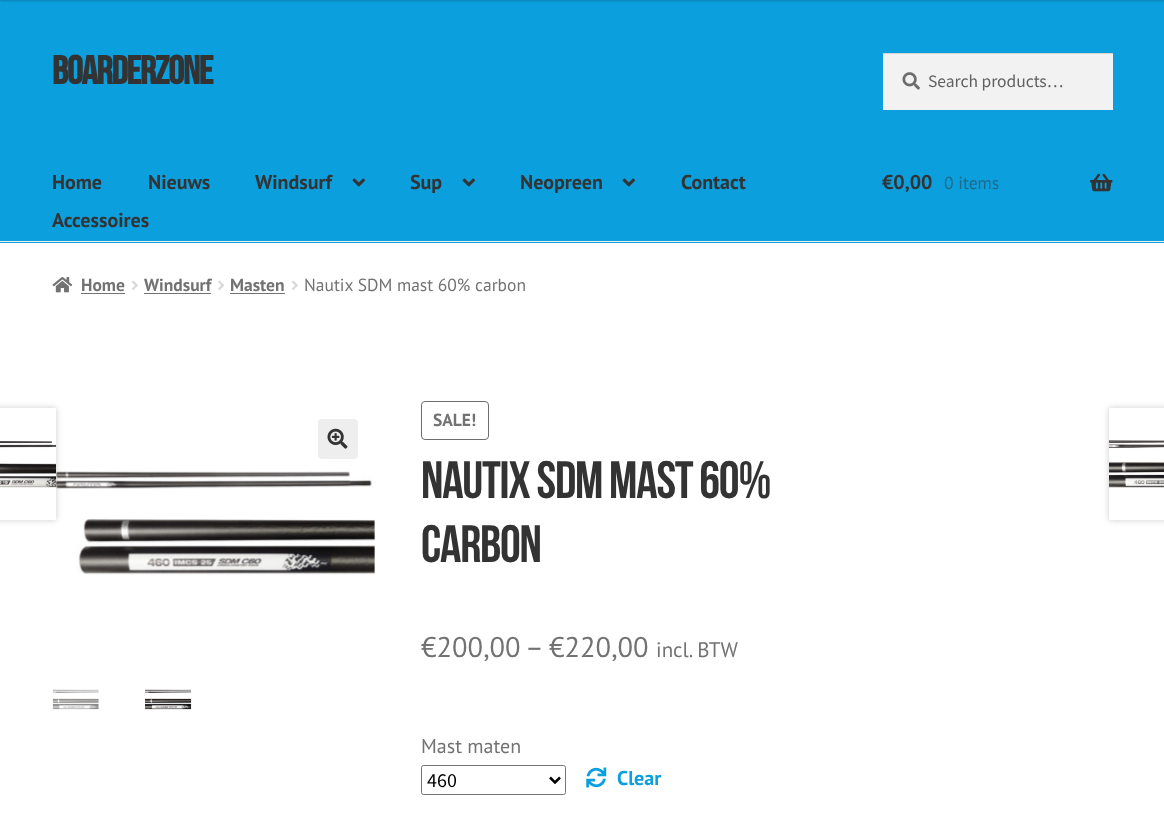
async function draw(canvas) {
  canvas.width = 1164
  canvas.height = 815
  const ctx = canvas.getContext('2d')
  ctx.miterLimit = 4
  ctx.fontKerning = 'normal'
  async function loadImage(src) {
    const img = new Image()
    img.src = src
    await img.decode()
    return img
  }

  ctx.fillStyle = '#fff'
  ctx.fillRect(0, 0, 1164, 815)
  ctx.fillStyle = '#0b9fdd'
  ctx.fillRect(0, 0, 1164, 243)
  ctx.fillStyle = '#00000033'
  ctx.filter = 'blur(1px)'
  ctx.beginPath()
  ctx.rect(0, -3, 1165, 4)
  ctx.fill()
  ctx.filter = 'none'
  ctx.fillStyle = '#f0f0f0'
  ctx.fillRect(0, 241, 1164, 1)
  ctx.letterSpacing = '-1.25px'
  ctx.font = 'bold 40px Bebas Neue'
  ctx.fillStyle = '#333'
  ctx.fillText('Boarderzone', 52, 84)
  ctx.fillStyle = '#f2f2f2'
  ctx.fillRect(883, 54, 230, 56)
  ctx.drawImage(await loadImage('image0.png'), 902, 72, 18, 18)
  ctx.fillStyle = '#d4d4d4'
  ctx.fillRect(883, 53, 230, 1)
  ctx.letterSpacing = '0px'
  ctx.font = '17.5px Source Sans Pro'
  ctx.fillStyle = '#616161'
  ctx.fillText('Search products…', 928, 87)
  ctx.font = 'bold 20px PT Sans'
  ctx.fillStyle = '#333'
  ctx.fillText('Home', 52, 189)
  ctx.fillText('Nieuws', 148, 189)
  ctx.fillText('Windsurf', 255, 189)
  ctx.drawImage(await loadImage('image1.png'), 352, 178, 13, 9)
  ctx.fillText('Sup', 410, 189)
  ctx.drawImage(await loadImage('image1.png'), 462, 178, 13, 9)
  ctx.fillText('Neopreen', 520, 189)
  ctx.drawImage(await loadImage('image1.png'), 622, 178, 13, 9)
  ctx.fillText('Contact', 681, 189)
  ctx.fillText('Accessoires', 52, 227)
  ctx.fillText('€0,00', 882, 189)
  ctx.font = '17.5px PT Sans'
  ctx.fillStyle = '#1f6988'
  ctx.fillText('0 items', 944, 189)
  ctx.drawImage(await loadImage('image2.png'), 1090, 173, 23, 19)
  ctx.drawImage(await loadImage('image3.png'), 52, 277, 21, 16)
  ctx.font = 'bold 17.5px PT Sans'
  ctx.fillStyle = '#727272'
  ctx.fillText('Home', 81, 291)
  ctx.fillRect(81, 293, 44, 1)
  ctx.drawImage(await loadImage('image4.png'), 132, 280, 6, 10)
  ctx.fillText('Windsurf', 144, 291)
  ctx.fillRect(144, 293, 67, 1)
  ctx.drawImage(await loadImage('image5.png'), 218, 280, 7, 10)
  ctx.fillText('Masten', 230, 291)
  ctx.fillRect(230, 293, 55, 1)
  ctx.drawImage(await loadImage('image4.png'), 292, 280, 6, 10)
  ctx.font = '17.5px PT Sans'
  ctx.fillText('Nautix SDM mast 60% carbon', 304, 291)
  ctx.drawImage(await loadImage('image9.png'), 53, 470, 322, 105)
  ctx.fillStyle = '#00000033'
  ctx.filter = 'blur(3px)'
  ctx.beginPath()
  ctx.rect(-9, 408, 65, 112)
  ctx.fill()
  ctx.filter = 'none'
  ctx.fillStyle = '#fff'
  ctx.fillRect(0, 408, 56, 112)
  ctx.drawImage(await loadImage('image6.png'), 0, 441, 56, 47)
  ctx.save()
  ctx.beginPath()
  ctx.moveTo(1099, 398)
  ctx.lineTo(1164, 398)
  ctx.lineTo(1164, 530)
  ctx.lineTo(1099, 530)
  ctx.closePath()
  ctx.moveTo(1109, 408)
  ctx.lineTo(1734, 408)
  ctx.lineTo(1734, 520)
  ctx.lineTo(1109, 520)
  ctx.closePath()
  ctx.clip('evenodd')
  ctx.fillStyle = '#00000033'
  ctx.filter = 'blur(3px)'
  ctx.beginPath()
  ctx.rect(1109, 408, 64, 112)
  ctx.fill()
  ctx.filter = 'none'
  ctx.restore()
  ctx.drawImage(await loadImage('image7.png'), 1109, 440, 55, 48)
  ctx.fillStyle = '#eee'
  ctx.beginPath()
  ctx.roundRect(318, 419, 40, 40, 4)
  ctx.fill()
  ctx.drawImage(await loadImage('image8.png'), 327, 428, 21, 21)
  ctx.drawImage(await loadImage('image10.png'), 52, 689, 47, 21)
  ctx.drawImage(await loadImage('image11.png'), 145, 689, 47, 21)
  ctx.beginPath()
  ctx.roundRect(421.5, 401.5, 67, 38, 3.5)
  ctx.strokeStyle = '#6d6d6d'
  ctx.stroke()
  ctx.font = 'bold 17.5px PT Sans'
  ctx.fillStyle = '#727272'
  ctx.fillText('SALE!', 433, 426)
  ctx.letterSpacing = '-1.25px'
  ctx.font = '52.5px Bebas Neue'
  ctx.fillStyle = '#333'
  ctx.fillText('Nautix SDM mast 60%', 421, 498)
  ctx.fillText('carbon', 421, 562)
  ctx.letterSpacing = '0px'
  ctx.font = '28.5px PT Sans'
  ctx.fillStyle = '#727272'
  ctx.fillText('€200,00', 421, 657)
  ctx.fillText('–', 525, 657)
  ctx.fillText('€220,00', 549, 657)
  ctx.font = '21px PT Sans'
  ctx.fillText('incl. BTW', 656, 657)
  ctx.font = '20px PT Sans'
  ctx.fillText('Mast maten', 421, 753)
  ctx.beginPath()
  ctx.roundRect(421.5, 765.5, 144, 29, 2)
  ctx.strokeStyle = '#767676'
  ctx.stroke()
  ctx.beginPath()
  ctx.moveTo(550, 777.5)
  ctx.lineTo(555, 782.5)
  ctx.lineTo(560, 777.5)
  ctx.strokeStyle = '#000'
  ctx.lineWidth = 2.5
  ctx.stroke()
  ctx.font = '20px Source Sans Pro'
  ctx.fillStyle = '#000'
  ctx.fillText('460', 427, 787)
  ctx.drawImage(await loadImage('image12.png'), 586, 767, 21, 21)
  ctx.font = 'bold 20px PT Sans'
  ctx.fillStyle = '#0b9fdd'
  ctx.fillText('Clear', 617, 785)
}

draw(document.querySelector('canvas'))
